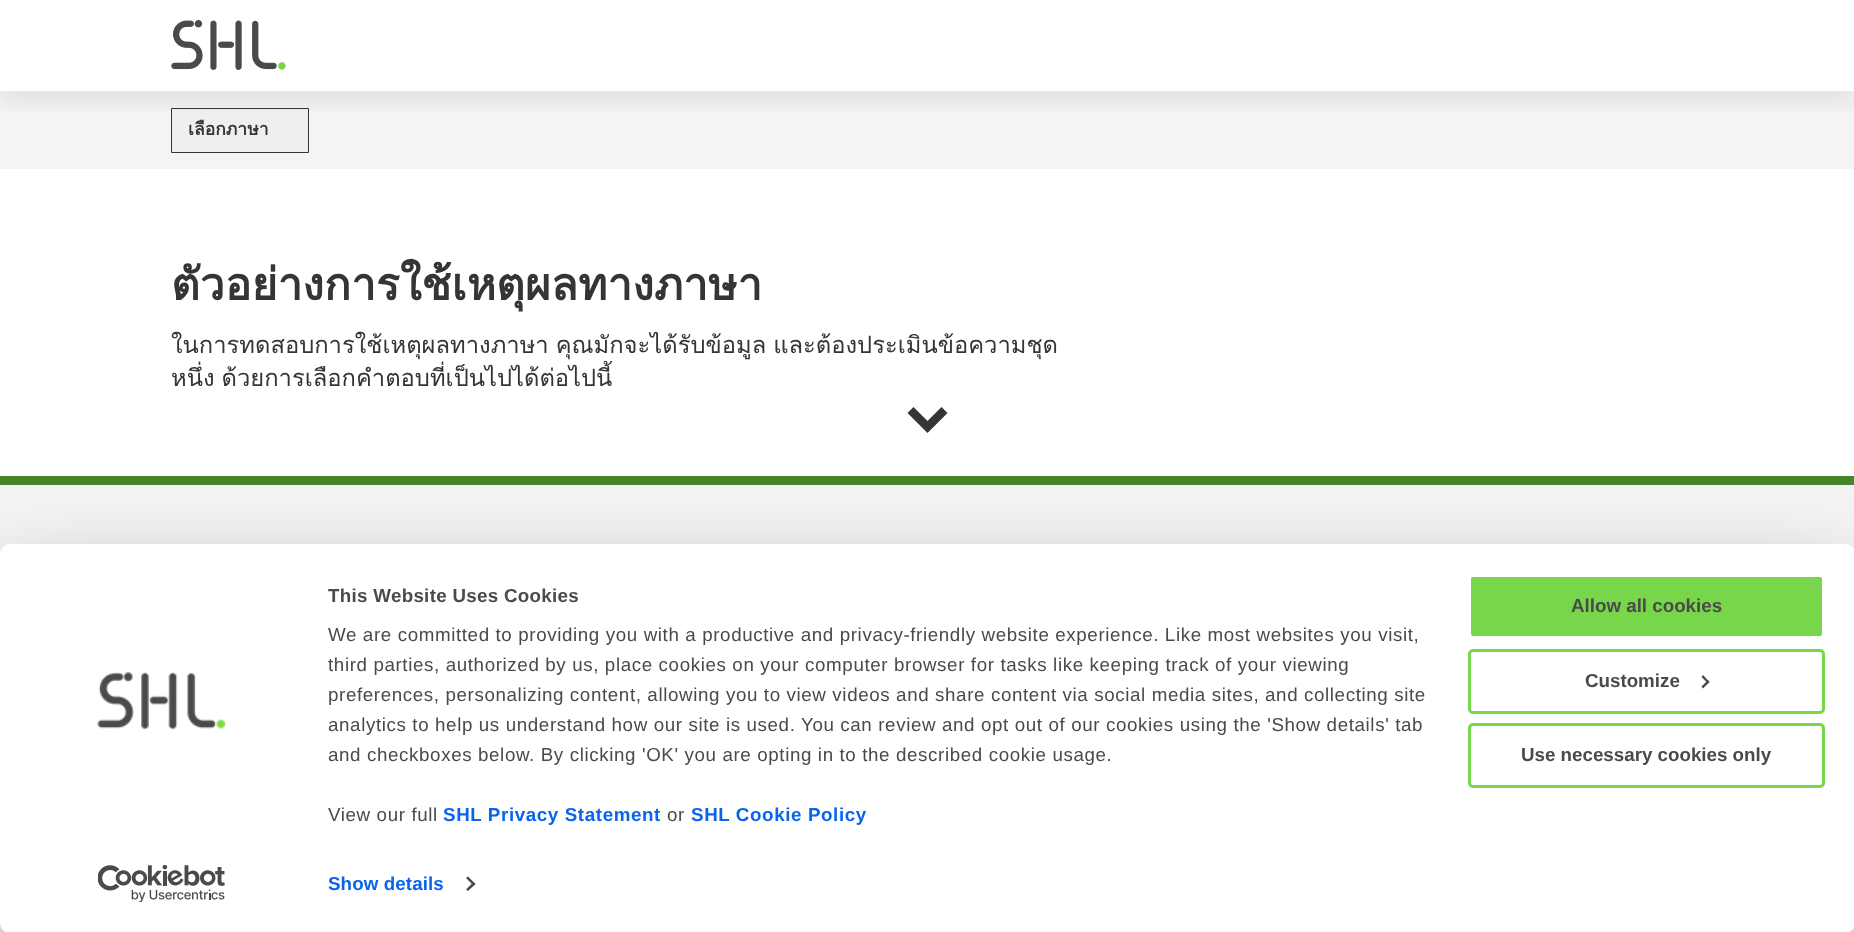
async function draw(canvas) {
  canvas.width = 1854
  canvas.height = 932
  const ctx = canvas.getContext('2d')
  ctx.miterLimit = 4
  ctx.fontKerning = 'normal'
  async function loadImage(src) {
    const img = new Image()
    img.src = src
    await img.decode()
    return img
  }

  ctx.fillStyle = '#fff'
  ctx.fillRect(0, 0, 1854, 932)
  ctx.fillStyle = '#f4f4f4'
  ctx.fillRect(0, 91, 1854, 78)
  ctx.fillStyle = '#efefef'
  ctx.beginPath()
  ctx.rect(171.5, 108.5, 137, 44)
  ctx.fill()
  ctx.strokeStyle = '#353535'
  ctx.stroke()
  ctx.save()
  ctx.beginPath()
  ctx.rect(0, 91, 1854, 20)
  ctx.clip()
  ctx.fillStyle = '#00000012'
  ctx.filter = 'blur(12.5px)'
  ctx.beginPath()
  ctx.rect(0, 13, 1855, 91)
  ctx.fill()
  ctx.filter = 'none'
  ctx.restore()
  ctx.drawImage(await loadImage('image0.png'), 171, 20, 115, 50)
  ctx.save()
  ctx.beginPath()
  ctx.rect(188, 118, 105, 25)
  ctx.clip()
  ctx.font = 'bold 17.5px Loma'
  ctx.fillStyle = '#353535'
  ctx.fillText('เลือกภาษา', 188, 135)
  ctx.restore()
  ctx.font = 'bold 44.4px Loma'
  ctx.fillStyle = '#353535'
  ctx.fillText('ตัวอย่างการใช้เหตุผลทางภาษา', 171, 300)
  ctx.wordSpacing = '-1px'
  ctx.font = '23.75px Loma'
  ctx.fillText('ในการทดสอบการใช้เหตุผลทางภาษา คุณมักจะได้รับข้อมูล และต้องประเมินข้อความชุด', 171, 353)
  ctx.fillText('หนึ่ง ด้วยการเลือกคำตอบที่เป็นไปได้ต่อไปนี้', 171, 386)
  ctx.beginPath()
  ctx.moveTo(927.5, 433)
  ctx.lineTo(907.5, 413)
  ctx.lineTo(913.5, 407)
  ctx.lineTo(927.5, 421)
  ctx.lineTo(941.5, 407)
  ctx.lineTo(947.5, 413)
  ctx.closePath()
  ctx.fill()
  ctx.fillStyle = '#468529'
  ctx.fillRect(0, 476, 1854, 9)
  ctx.fillStyle = '#f4f4f4'
  ctx.fillRect(0, 485, 1854, 69)
  ctx.fillRect(0, 923, 1854, 9)
  ctx.fillStyle = '#0000004d'
  ctx.filter = 'blur(44px)'
  ctx.beginPath()
  ctx.roundRect(0, 581, 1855, 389, 10)
  ctx.fill()
  ctx.filter = 'none'
  ctx.fillStyle = '#fff'
  ctx.beginPath()
  ctx.roundRect(0, 544, 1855, 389, 10)
  ctx.fill()
  ctx.drawImage(await loadImage('image1.png'), 97, 672, 129, 58)
  ctx.drawImage(await loadImage('image2.png'), 98, 865, 127, 38)
  ctx.letterSpacing = '0.3px'
  ctx.wordSpacing = '0px'
  ctx.font = 'bold 18.75px Liberation Sans'
  ctx.fillStyle = '#4a4a4a'
  ctx.fillText('This Website Uses Cookies', 328, 602)
  ctx.letterSpacing = '0.62px'
  ctx.font = '18.75px Liberation Sans'
  ctx.fillText('We are committed to providing you with a productive and privacy-friendly website experience. Like most websites you visit,', 328, 641)
  ctx.fillText('third parties, authorized by us, place cookies on your computer browser for tasks like keeping track of your viewing', 328, 671)
  ctx.fillText('preferences, personalizing content, allowing you to view videos and share content via social media sites, and collecting site', 328, 701)
  ctx.fillText('analytics to help us understand how our site is used. You can review and opt out of our cookies using the \'Show details\' tab', 328, 731)
  ctx.fillText('and checkboxes below. By clicking \'OK\' you are opting in to the described cookie usage.', 328, 761)
  ctx.fillText('View our full', 328, 821)
  ctx.font = 'bold 18.75px Liberation Sans'
  ctx.fillStyle = '#0964ed'
  ctx.fillText('SHL Privacy Statement', 443, 821)
  ctx.font = '18.75px Liberation Sans'
  ctx.fillStyle = '#4a4a4a'
  ctx.fillText('or', 667, 821)
  ctx.font = 'bold 18.75px Liberation Sans'
  ctx.fillStyle = '#0964ed'
  ctx.fillText('SHL Cookie Policy', 691, 821)
  ctx.letterSpacing = '0.1px'
  ctx.fillText('Show details', 328, 890)
  ctx.fillStyle = '#4a4a4a'
  ctx.beginPath()
  ctx.moveTo(468, 876.5)
  ctx.lineTo(475.5, 884)
  ctx.lineTo(473.5, 885.5)
  ctx.lineTo(466, 878)
  ctx.closePath()
  ctx.fill()
  ctx.beginPath()
  ctx.moveTo(473.5, 882)
  ctx.lineTo(475.5, 884)
  ctx.lineTo(468, 891)
  ctx.lineTo(466, 889.5)
  ctx.closePath()
  ctx.fill()
  ctx.fillStyle = '#78d64b'
  ctx.beginPath()
  ctx.roundRect(1469.5, 575.5, 354, 62, 3.5)
  ctx.fill()
  ctx.strokeStyle = '#fff'
  ctx.lineWidth = 3
  ctx.stroke()
  ctx.letterSpacing = '0px'
  ctx.fillStyle = '#4a4a4a'
  ctx.fillText('Allow all cookies', 1571, 612)
  ctx.beginPath()
  ctx.roundRect(1469.5, 650.5, 354, 62, 3.5)
  ctx.strokeStyle = '#78d64b'
  ctx.stroke()
  ctx.fillText('Customize', 1585, 687)
  ctx.beginPath()
  ctx.moveTo(1703, 675)
  ctx.lineTo(1709.5, 682)
  ctx.lineTo(1708, 683.5)
  ctx.lineTo(1701.5, 677)
  ctx.closePath()
  ctx.fill()
  ctx.beginPath()
  ctx.moveTo(1708, 680)
  ctx.lineTo(1709.5, 682)
  ctx.lineTo(1703, 688.5)
  ctx.lineTo(1701.5, 686.5)
  ctx.closePath()
  ctx.fill()
  ctx.beginPath()
  ctx.roundRect(1469.5, 724.5, 354, 62, 3.5)
  ctx.stroke()
  ctx.fillText('Use necessary cookies only', 1521, 761)
}

draw(document.querySelector('canvas'))
